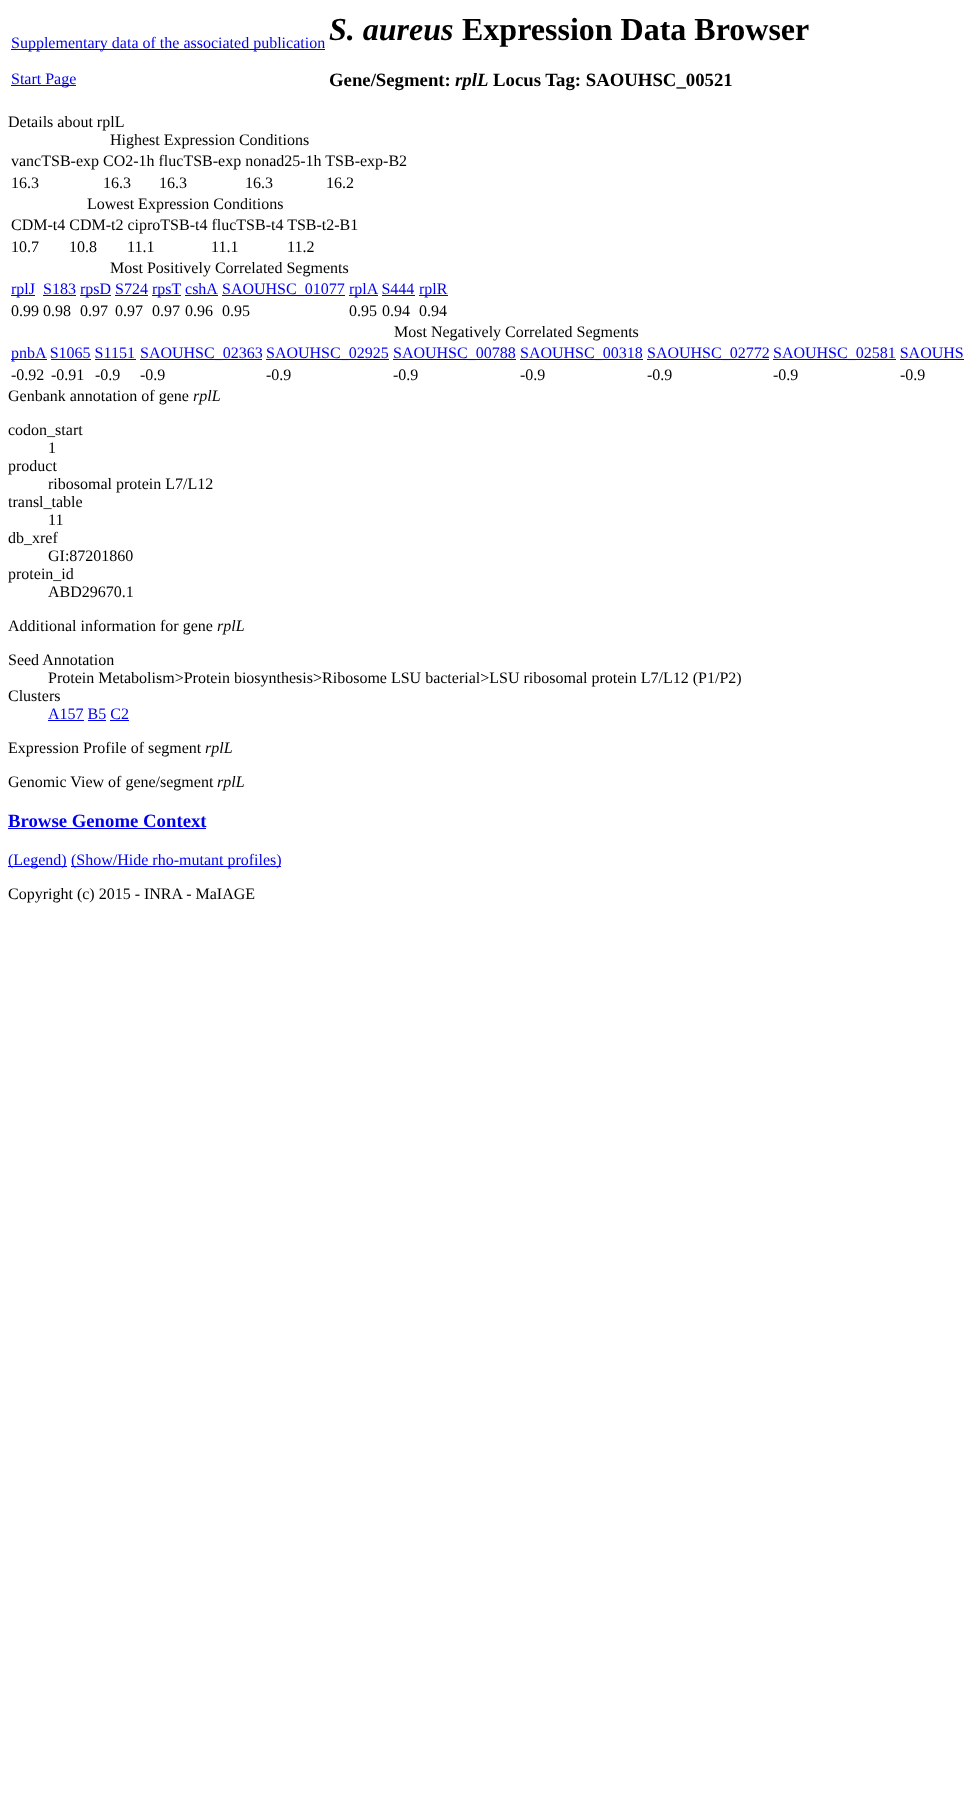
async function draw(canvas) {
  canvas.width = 964
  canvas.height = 1793
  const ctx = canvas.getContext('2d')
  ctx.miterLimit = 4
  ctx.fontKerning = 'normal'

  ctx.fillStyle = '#fff'
  ctx.fillRect(0, 0, 964, 1793)
  ctx.fillStyle = '#00e'
  ctx.fillRect(11, 49, 314, 1)
  ctx.font = '16px Liberation Serif'
  ctx.fillText('Supplementary data of the associated publication', 11, 48)
  ctx.fillRect(11, 85, 65, 1)
  ctx.fillText('Start Page', 11, 84)
  ctx.font = 'italic bold 32px Liberation Serif'
  ctx.fillStyle = '#000'
  ctx.fillText('S. aureus', 329, 40)
  ctx.font = 'bold 32px Liberation Serif'
  ctx.fillText('Expression Data Browser', 462, 40)
  ctx.font = 'bold 18.75px Liberation Serif'
  ctx.fillText('Gene/Segment:', 329, 86)
  ctx.font = 'italic bold 18.75px Liberation Serif'
  ctx.fillText('rplL', 455, 86)
  ctx.font = 'bold 18.75px Liberation Serif'
  ctx.fillText('Locus Tag: SAOUHSC_00521', 493, 86)
  ctx.font = '16px Liberation Serif'
  ctx.fillText('Details about rplL', 8, 127)
  ctx.fillText('Highest Expression Conditions', 110, 145)
  ctx.fillText('vancTSB-exp CO2-1h flucTSB-exp nonad25-1h TSB-exp-B2', 11, 166)
  ctx.fillText('16.3', 11, 188)
  ctx.fillText('16.3', 103, 188)
  ctx.fillText('16.3', 159, 188)
  ctx.fillText('16.3', 245, 188)
  ctx.fillText('16.2', 326, 188)
  ctx.fillText('Lowest Expression Conditions', 87, 209)
  ctx.fillText('CDM-t4 CDM-t2 ciproTSB-t4 flucTSB-t4 TSB-t2-B1', 11, 230)
  ctx.fillText('10.7', 11, 252)
  ctx.fillText('10.8', 69, 252)
  ctx.fillText('11.1', 127, 252)
  ctx.fillText('11.1', 211, 252)
  ctx.fillText('11.2', 287, 252)
  ctx.fillText('Most Positively Correlated Segments', 110, 273)
  ctx.fillStyle = '#00e'
  ctx.fillRect(11, 295, 24, 1)
  ctx.fillText('rplJ', 11, 294)
  ctx.fillText('S183', 43, 294)
  ctx.fillRect(43, 295, 33, 1)
  ctx.fillRect(80, 295, 31, 1)
  ctx.fillText('rpsD S724', 80, 294)
  ctx.fillRect(152, 295, 29, 1)
  ctx.fillText('rpsT cshA', 152, 294)
  ctx.fillRect(222, 295, 123, 1)
  ctx.fillText('SAOUHSC_01077', 222, 294)
  ctx.fillRect(349, 295, 29, 1)
  ctx.fillText('rplA S444', 349, 294)
  ctx.fillRect(419, 295, 29, 1)
  ctx.fillText('rplR', 419, 294)
  ctx.fillRect(115, 295, 33, 1)
  ctx.fillRect(185, 295, 33, 1)
  ctx.fillRect(382, 295, 33, 1)
  ctx.fillStyle = '#000'
  ctx.fillText('0.99 0.98', 11, 316)
  ctx.fillText('0.97', 80, 316)
  ctx.fillText('0.97', 115, 316)
  ctx.fillText('0.97', 152, 316)
  ctx.fillText('0.96', 185, 316)
  ctx.fillText('0.95', 222, 316)
  ctx.fillText('0.95', 349, 316)
  ctx.fillText('0.94', 382, 316)
  ctx.fillText('0.94', 419, 316)
  ctx.fillText('Most Negatively Correlated Segments', 394, 337)
  ctx.fillStyle = '#00e'
  ctx.fillRect(11, 359, 36, 1)
  ctx.fillText('pnbA S1065 S1151', 11, 358)
  ctx.fillRect(140, 359, 122, 1)
  ctx.fillText('SAOUHSC_02363', 140, 358)
  ctx.fillRect(266, 359, 123, 1)
  ctx.fillText('SAOUHSC_02925', 266, 358)
  ctx.fillRect(393, 359, 123, 1)
  ctx.fillText('SAOUHSC_00788', 393, 358)
  ctx.fillRect(520, 359, 123, 1)
  ctx.fillText('SAOUHSC_00318', 520, 358)
  ctx.fillRect(647, 359, 122, 1)
  ctx.fillText('SAOUHSC_02772', 647, 358)
  ctx.fillRect(773, 359, 123, 1)
  ctx.fillText('SAOUHSC_02581 SAOUHS', 773, 358)
  ctx.fillRect(51, 359, 40, 1)
  ctx.fillRect(95, 359, 41, 1)
  ctx.fillRect(900, 359, 64, 1)
  ctx.fillStyle = '#000'
  ctx.fillText('-0.92', 11, 380)
  ctx.fillText('-0.91', 51, 380)
  ctx.fillText('-0.9', 95, 380)
  ctx.fillText('-0.9', 140, 380)
  ctx.fillText('-0.9', 266, 380)
  ctx.fillText('-0.9', 393, 380)
  ctx.fillText('-0.9', 520, 380)
  ctx.fillText('-0.9', 647, 380)
  ctx.fillText('-0.9', 773, 380)
  ctx.fillText('-0.9', 900, 380)
  ctx.fillText('Genbank annotation of gene', 8, 401)
  ctx.font = 'italic 16px Liberation Serif'
  ctx.fillText('rplL', 193, 401)
  ctx.font = '16px Liberation Serif'
  ctx.fillText('codon_start', 8, 435)
  ctx.fillText('1', 48, 453)
  ctx.fillText('product', 8, 471)
  ctx.fillText('ribosomal protein L7/L12', 48, 489)
  ctx.fillText('transl_table', 8, 507)
  ctx.fillText('11', 48, 525)
  ctx.fillText('db_xref', 8, 543)
  ctx.fillText('GI:87201860', 48, 561)
  ctx.fillText('protein_id', 8, 579)
  ctx.fillText('ABD29670.1', 48, 597)
  ctx.fillText('Additional information for gene', 8, 631)
  ctx.font = 'italic 16px Liberation Serif'
  ctx.fillText('rplL', 217, 631)
  ctx.font = '16px Liberation Serif'
  ctx.fillText('Seed Annotation', 8, 665)
  ctx.fillText('Protein Metabolism>Protein biosynthesis>Ribosome LSU bacterial>LSU ribosomal protein L7/L12 (P1/P2)', 48, 683)
  ctx.fillText('Clusters', 8, 701)
  ctx.fillStyle = '#00e'
  ctx.fillText('A157 B5 C2', 48, 719)
  ctx.fillRect(48, 720, 36, 1)
  ctx.fillRect(88, 720, 18, 1)
  ctx.fillRect(110, 720, 19, 1)
  ctx.fillStyle = '#000'
  ctx.fillText('Expression Profile of segment', 8, 753)
  ctx.font = 'italic 16px Liberation Serif'
  ctx.fillText('rplL', 205, 753)
  ctx.font = '16px Liberation Serif'
  ctx.fillText('Genomic View of gene/segment', 8, 787)
  ctx.font = 'italic 16px Liberation Serif'
  ctx.fillText('rplL', 217, 787)
  ctx.font = 'bold 18.75px Liberation Serif'
  ctx.fillStyle = '#00e'
  ctx.fillText('Browse Genome Context', 8, 827)
  ctx.fillRect(8, 828, 198, 1)
  ctx.fillRect(8, 866, 59, 1)
  ctx.font = '16px Liberation Serif'
  ctx.fillText('(Legend)', 8, 865)
  ctx.fillRect(71, 866, 210, 1)
  ctx.fillText('(Show/Hide rho-mutant profiles)', 71, 865)
  ctx.fillStyle = '#000'
  ctx.fillText('Copyright (c) 2015 - INRA - MaIAGE', 8, 899)
}

draw(document.querySelector('canvas'))
